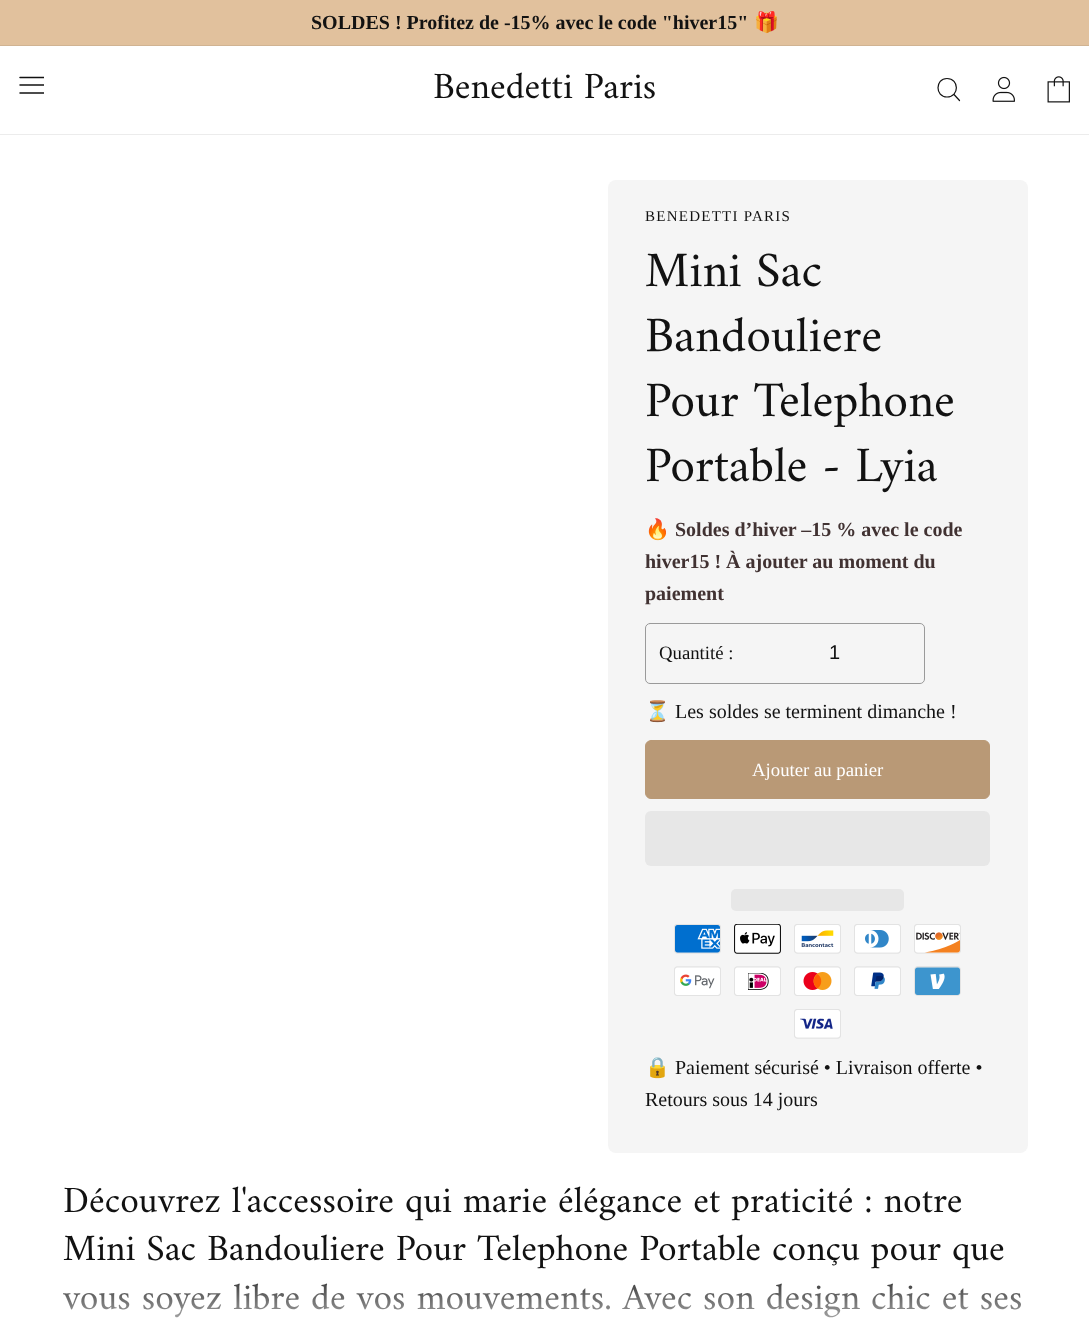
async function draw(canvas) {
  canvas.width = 1089
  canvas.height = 1324
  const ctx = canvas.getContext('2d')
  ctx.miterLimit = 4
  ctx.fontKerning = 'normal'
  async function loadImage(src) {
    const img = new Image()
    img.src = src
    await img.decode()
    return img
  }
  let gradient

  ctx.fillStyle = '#fff'
  ctx.fillRect(0, 0, 1089, 1324)
  ctx.fillStyle = '#e1c19d'
  ctx.fillRect(0, 0, 1089, 45)
  ctx.fillStyle = '#d0b392'
  ctx.fillRect(0, 45, 1089, 1)
  ctx.font = 'bold 20px Liberation Serif'
  ctx.fillStyle = '#121212'
  ctx.fillText('SOLDES ! Profitez de -15% avec le code "hiver15"', 311, 29)
  ctx.font = '20px Noto Color Emoji'
  ctx.fillText('🎁', 754, 29)
  ctx.fillStyle = '#ececec'
  ctx.fillRect(0, 134, 1089, 1)
  ctx.save()
  ctx.beginPath()
  ctx.rect(19, 71, 25, 27)
  ctx.clip()
  ctx.beginPath()
  ctx.moveTo(20, 77.5)
  ctx.lineTo(44, 77.5)
  ctx.moveTo(20, 85)
  ctx.lineTo(44, 85)
  ctx.moveTo(20, 93)
  ctx.lineTo(44, 93)
  ctx.strokeStyle = '#121212'
  ctx.lineWidth = 1.5
  ctx.lineCap = 'round'
  ctx.lineJoin = 'round'
  ctx.stroke()
  ctx.restore()
  ctx.font = '37.5px Amiri'
  ctx.fillStyle = '#121212'
  ctx.fillText('Benedetti Paris', 433, 98)
  ctx.beginPath()
  ctx.moveTo(947, 97)
  ctx.bezierCurveTo(959.5, 97, 959.5, 78.5, 947, 78.5)
  ctx.bezierCurveTo(935, 78.5, 935, 97, 947, 97)
  ctx.closePath()
  ctx.moveTo(959.5, 100.5)
  ctx.lineTo(954, 94.5)
  ctx.strokeStyle = '#121212'
  ctx.lineWidth = 1.2
  ctx.lineCap = 'round'
  ctx.lineJoin = 'round'
  ctx.stroke()
  ctx.drawImage(await loadImage('image0.png'), 992, 76, 23, 26)
  ctx.drawImage(await loadImage('image1.png'), 1047, 76, 23, 27)
  ctx.fillStyle = '#f5f5f5'
  ctx.beginPath()
  ctx.roundRect(608, 180, 420, 973, 8)
  ctx.fill()
  ctx.letterSpacing = '1.25px'
  ctx.font = '15px Liberation Serif'
  ctx.fillStyle = '#121212'
  ctx.fillText('BENEDETTI PARIS', 645, 221)
  ctx.letterSpacing = '0px'
  ctx.font = '50px Amiri'
  ctx.fillText('Mini Sac', 645, 286)
  ctx.fillText('Bandouliere', 645, 351)
  ctx.fillText('Pour Telephone', 645, 416)
  ctx.fillText('Portable - Lyia', 645, 481)
  ctx.font = '20px Noto Color Emoji'
  ctx.fillStyle = '#413232'
  ctx.fillText('🔥', 645, 536)
  ctx.font = 'bold 20px Liberation Serif'
  ctx.fillText('Soldes d’hiver –15 % avec le code', 675, 536)
  ctx.fillText('hiver15 ! À ajouter au moment du', 645, 568)
  ctx.fillText('paiement', 645, 600)
  ctx.beginPath()
  ctx.roundRect(645.5, 623.5, 279, 60, 4.5)
  ctx.strokeStyle = '#9a9a9a'
  ctx.lineWidth = 1
  ctx.lineJoin = 'miter'
  ctx.stroke()
  ctx.font = '18.75px Liberation Serif'
  ctx.fillStyle = '#121212'
  ctx.fillText('Quantité :', 659, 659)
  ctx.font = '20px Liberation Sans'
  ctx.fillText('1', 829, 659)
  ctx.font = '20px Noto Color Emoji'
  ctx.fillText('⏳', 645, 718)
  ctx.font = '20px Liberation Serif'
  ctx.fillText('Les soldes se terminent dimanche !', 675, 718)
  ctx.fillStyle = '#b99976'
  ctx.beginPath()
  ctx.roundRect(645.5, 740.5, 344, 58, 5.5)
  ctx.fill()
  ctx.strokeStyle = '#b99976'
  ctx.stroke()
  ctx.font = '18.75px Liberation Serif'
  ctx.fillStyle = '#fff'
  ctx.fillText('Ajouter au panier', 752, 776)
  ctx.fillStyle = '#e7e7e7'
  ctx.beginPath()
  ctx.roundRect(645, 811, 345, 55, 6)
  ctx.fill()
  ctx.beginPath()
  ctx.roundRect(731, 889, 173, 22, 5)
  ctx.fill()
  ctx.drawImage(await loadImage('image2.png'), 674, 924, 47, 30)
  ctx.drawImage(await loadImage('image3.png'), 734, 924, 47, 30)
  ctx.drawImage(await loadImage('image4.png'), 794, 924, 47, 30)
  ctx.drawImage(await loadImage('image5.png'), 854, 924, 47, 30)
  ctx.drawImage(await loadImage('image6.png'), 914, 924, 47, 30)
  ctx.drawImage(await loadImage('image7.png'), 674, 966, 47, 30)
  ctx.drawImage(await loadImage('image8.png'), 734, 966, 47, 30)
  ctx.drawImage(await loadImage('image9.png'), 794, 966, 47, 30)
  ctx.drawImage(await loadImage('image10.png'), 854, 966, 47, 30)
  ctx.drawImage(await loadImage('image11.png'), 914, 966, 47, 30)
  ctx.drawImage(await loadImage('image12.png'), 794, 1009, 47, 30)
  ctx.font = '20px Noto Color Emoji'
  ctx.fillStyle = '#121212'
  ctx.fillText('🔒', 645, 1074)
  ctx.font = '20px Liberation Serif'
  ctx.fillText('Paiement sécurisé • Livraison offerte •', 675, 1074)
  ctx.fillText('Retours sous 14 jours', 645, 1106)
  ctx.font = '37.5px Amiri'
  ctx.fillText('Découvrez l\'accessoire qui marie élégance et praticité : notre', 63, 1212)
  ctx.fillText('Mini Sac Bandouliere Pour Telephone Portable conçu pour que', 63, 1260)
  ctx.fillText('vous soyez libre de vos mouvements. Avec son design chic et ses', 63, 1309)
  gradient = ctx.createLinearGradient(545, 1265, 545, 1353)
  gradient.addColorStop(0, '#ffffff00')
  gradient.addColorStop(1, '#fff')
  ctx.fillStyle = gradient
  ctx.fillRect(63, 1267, 958, 51)
}

draw(document.querySelector('canvas'))
